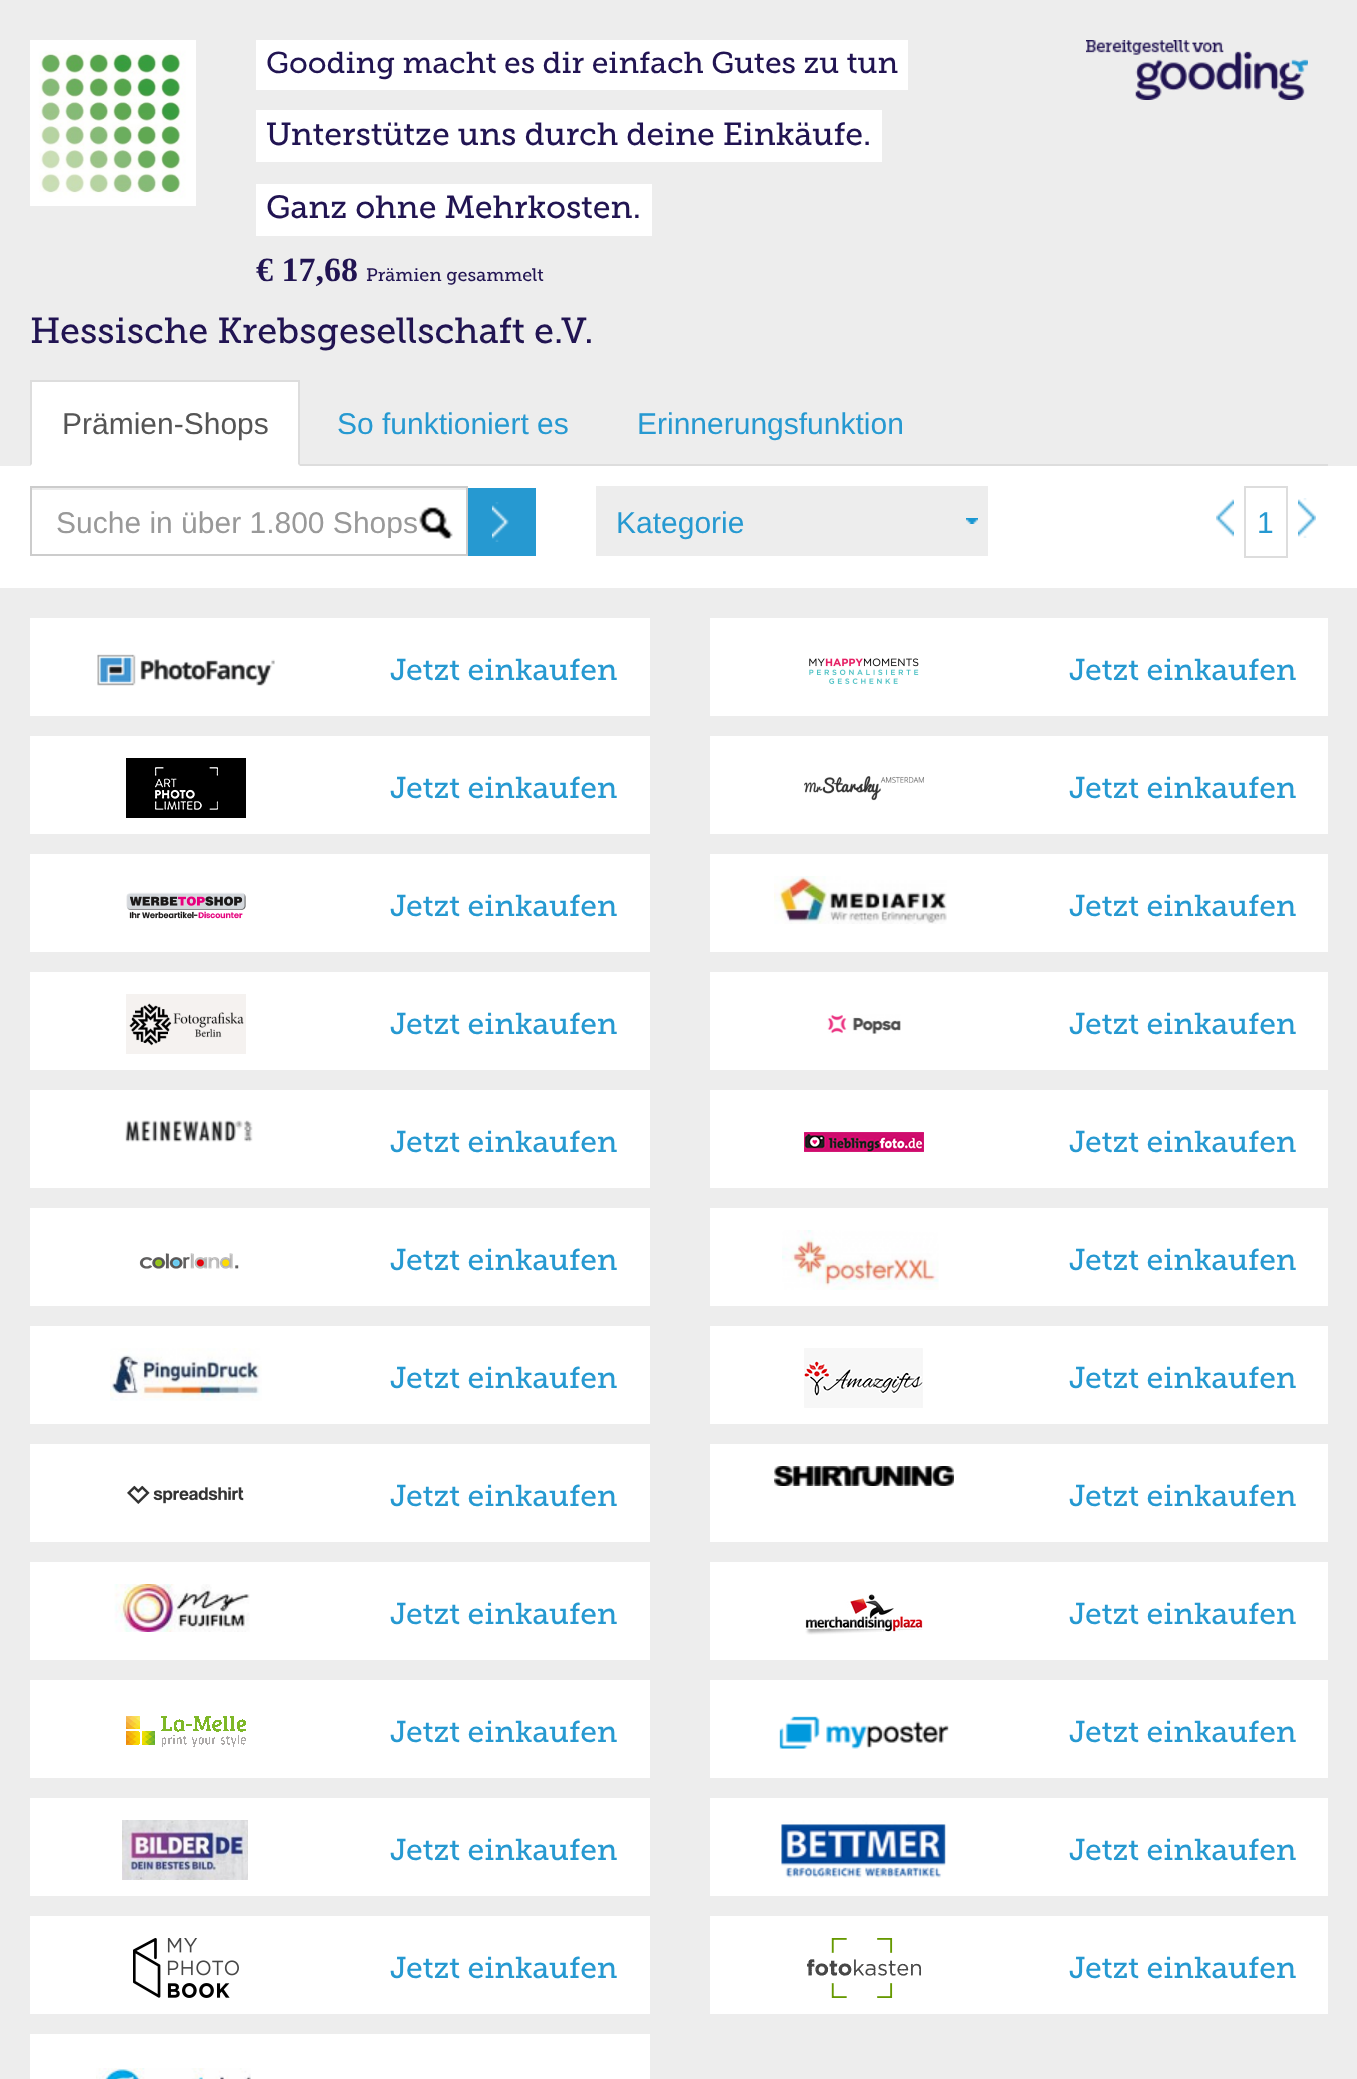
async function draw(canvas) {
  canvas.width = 1357
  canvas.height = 2079
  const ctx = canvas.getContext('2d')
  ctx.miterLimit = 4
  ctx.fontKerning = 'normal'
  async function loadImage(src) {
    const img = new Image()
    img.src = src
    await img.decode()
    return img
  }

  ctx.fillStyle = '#ededed'
  ctx.fillRect(0, 0, 1357, 2079)
  ctx.drawImage(await loadImage('image0.png'), 30, 40, 166, 166)
  ctx.fillStyle = '#fff'
  ctx.fillRect(256, 40, 652, 50)
  ctx.font = '30px Museo Slab'
  ctx.fillStyle = '#211452'
  ctx.fillText('Gooding macht es dir einfach Gutes zu tun', 266, 73)
  ctx.fillStyle = '#fff'
  ctx.fillRect(256, 110, 626, 52)
  ctx.font = '32px Museo Slab'
  ctx.fillStyle = '#211452'
  ctx.fillText('Unterstütze uns durch deine Einkäufe.', 266, 145)
  ctx.fillStyle = '#fff'
  ctx.fillRect(256, 184, 396, 52)
  ctx.fillStyle = '#211452'
  ctx.fillText('Ganz ohne Mehrkosten.', 266, 218)
  ctx.drawImage(await loadImage('image1.png'), 1086, 40, 222, 60)
  ctx.font = 'bold 34px Liberation Serif'
  ctx.fillText('€ 17,68', 256, 281)
  ctx.font = '18px Museo Slab'
  ctx.fillText('Prämien gesammelt', 366, 281)
  ctx.font = '36px Museo Slab'
  ctx.fillText('Hessische Krebsgesellschaft e.V.', 30, 343)
  ctx.fillStyle = '#ddd'
  ctx.fillRect(300, 464, 1028, 2)
  ctx.fillStyle = '#fff'
  ctx.fillRect(30, 382, 270, 84)
  ctx.fillStyle = '#ddd'
  ctx.fillRect(30, 380, 270, 2)
  ctx.beginPath()
  ctx.moveTo(300, 380)
  ctx.lineTo(300, 466)
  ctx.lineTo(298, 464)
  ctx.lineTo(298, 382)
  ctx.closePath()
  ctx.fill()
  ctx.beginPath()
  ctx.moveTo(30, 466)
  ctx.lineTo(30, 380)
  ctx.lineTo(32, 382)
  ctx.lineTo(32, 464)
  ctx.closePath()
  ctx.fill()
  ctx.font = '30px Liberation Sans'
  ctx.fillStyle = '#555'
  ctx.fillText('Prämien-Shops', 62, 434)
  ctx.fillStyle = '#2699d1'
  ctx.fillText('So funktioniert es', 337, 434)
  ctx.fillText('Erinnerungsfunktion', 637, 434)
  ctx.fillStyle = '#fff'
  ctx.fillRect(0, 466, 1357, 122)
  ctx.drawImage(await loadImage('image2.png'), 419, 507, 34, 32)
  ctx.fillStyle = '#ececec'
  ctx.fillRect(32, 488, 434, 2)
  ctx.strokeStyle = '#ccc'
  ctx.lineWidth = 2
  ctx.strokeRect(31, 487, 436, 68)
  ctx.save()
  ctx.beginPath()
  ctx.rect(56, 504, 386, 34)
  ctx.clip()
  ctx.fillStyle = '#999'
  ctx.fillText('Suche in über 1.800 Shops', 56, 533)
  ctx.restore()
  ctx.fillStyle = '#2699d1'
  ctx.fillRect(468, 488, 68, 68)
  ctx.drawImage(await loadImage('image3.png'), 492, 502, 17, 40)
  ctx.fillStyle = '#ededed'
  ctx.fillRect(596, 486, 392, 70)
  ctx.drawImage(await loadImage('image4.png'), 966, 518, 12, 6)
  ctx.fillStyle = '#2699d1'
  ctx.fillText('Kategorie', 616, 533)
  ctx.drawImage(await loadImage('image5.png'), 1216, 499, 18, 38)
  ctx.strokeStyle = '#ddd'
  ctx.strokeRect(1245, 487, 42, 70)
  ctx.fillText('1', 1257, 533)
  ctx.drawImage(await loadImage('image6.png'), 1298, 498, 18, 40)
  ctx.fillStyle = '#fff'
  ctx.fillRect(30, 618, 620, 98)
  ctx.drawImage(await loadImage('image7.png'), 97, 654, 178, 32)
  ctx.font = '30px Museo Slab'
  ctx.fillStyle = '#2699d1'
  ctx.fillText('Jetzt einkaufen', 390, 680)
  ctx.fillStyle = '#fff'
  ctx.fillRect(710, 618, 618, 98)
  ctx.drawImage(await loadImage('image8.png'), 809, 658, 110, 26)
  ctx.fillStyle = '#2699d1'
  ctx.fillText('Jetzt einkaufen', 1069, 680)
  ctx.fillStyle = '#fff'
  ctx.fillRect(30, 736, 620, 98)
  ctx.drawImage(await loadImage('image9.png'), 126, 758, 120, 60)
  ctx.fillStyle = '#2699d1'
  ctx.fillText('Jetzt einkaufen', 390, 798)
  ctx.fillStyle = '#fff'
  ctx.fillRect(710, 736, 618, 98)
  ctx.drawImage(await loadImage('image10.png'), 804, 776, 120, 25)
  ctx.fillStyle = '#2699d1'
  ctx.fillText('Jetzt einkaufen', 1069, 798)
  ctx.fillStyle = '#fff'
  ctx.fillRect(30, 854, 620, 98)
  ctx.drawImage(await loadImage('image11.png'), 126, 892, 120, 27)
  ctx.fillStyle = '#2699d1'
  ctx.fillText('Jetzt einkaufen', 390, 916)
  ctx.fillStyle = '#fff'
  ctx.fillRect(710, 854, 618, 98)
  ctx.drawImage(await loadImage('image12.png'), 774, 876, 173, 48)
  ctx.fillStyle = '#2699d1'
  ctx.fillText('Jetzt einkaufen', 1069, 916)
  ctx.fillStyle = '#fff'
  ctx.fillRect(30, 972, 620, 98)
  ctx.drawImage(await loadImage('image13.png'), 126, 994, 120, 60)
  ctx.fillStyle = '#2699d1'
  ctx.fillText('Jetzt einkaufen', 390, 1034)
  ctx.fillStyle = '#fff'
  ctx.fillRect(710, 972, 618, 98)
  ctx.drawImage(await loadImage('image14.png'), 827, 1014, 74, 20)
  ctx.fillStyle = '#2699d1'
  ctx.fillText('Jetzt einkaufen', 1069, 1034)
  ctx.fillStyle = '#fff'
  ctx.fillRect(30, 1090, 620, 98)
  ctx.drawImage(await loadImage('image15.png'), 125, 1120, 128, 22)
  ctx.fillStyle = '#2699d1'
  ctx.fillText('Jetzt einkaufen', 390, 1152)
  ctx.fillStyle = '#fff'
  ctx.fillRect(710, 1090, 618, 98)
  ctx.drawImage(await loadImage('image16.png'), 804, 1132, 120, 20)
  ctx.fillStyle = '#2699d1'
  ctx.fillText('Jetzt einkaufen', 1069, 1152)
  ctx.fillStyle = '#fff'
  ctx.fillRect(30, 1208, 620, 98)
  ctx.drawImage(await loadImage('image17.png'), 139, 1253, 100, 16)
  ctx.fillStyle = '#2699d1'
  ctx.fillText('Jetzt einkaufen', 390, 1270)
  ctx.fillStyle = '#fff'
  ctx.fillRect(710, 1208, 618, 98)
  ctx.drawImage(await loadImage('image18.png'), 782, 1230, 157, 60)
  ctx.fillStyle = '#2699d1'
  ctx.fillText('Jetzt einkaufen', 1069, 1270)
  ctx.fillStyle = '#fff'
  ctx.fillRect(30, 1326, 620, 98)
  ctx.drawImage(await loadImage('image19.png'), 110, 1348, 152, 53)
  ctx.fillStyle = '#2699d1'
  ctx.fillText('Jetzt einkaufen', 390, 1388)
  ctx.fillStyle = '#fff'
  ctx.fillRect(710, 1326, 618, 98)
  ctx.drawImage(await loadImage('image20.png'), 804, 1348, 119, 60)
  ctx.fillStyle = '#2699d1'
  ctx.fillText('Jetzt einkaufen', 1069, 1388)
  ctx.fillStyle = '#fff'
  ctx.fillRect(30, 1444, 620, 98)
  ctx.drawImage(await loadImage('image21.png'), 127, 1485, 117, 19)
  ctx.fillStyle = '#2699d1'
  ctx.fillText('Jetzt einkaufen', 390, 1506)
  ctx.fillStyle = '#fff'
  ctx.fillRect(710, 1444, 618, 98)
  ctx.drawImage(await loadImage('image22.png'), 774, 1466, 180, 20)
  ctx.fillStyle = '#2699d1'
  ctx.fillText('Jetzt einkaufen', 1069, 1506)
  ctx.fillStyle = '#fff'
  ctx.fillRect(30, 1562, 620, 98)
  ctx.drawImage(await loadImage('image23.png'), 114, 1584, 136, 48)
  ctx.fillStyle = '#2699d1'
  ctx.fillText('Jetzt einkaufen', 390, 1624)
  ctx.fillStyle = '#fff'
  ctx.fillRect(710, 1562, 618, 98)
  ctx.drawImage(await loadImage('image24.png'), 805, 1594, 118, 41)
  ctx.fillStyle = '#2699d1'
  ctx.fillText('Jetzt einkaufen', 1069, 1624)
  ctx.fillStyle = '#fff'
  ctx.fillRect(30, 1680, 620, 98)
  ctx.drawImage(await loadImage('image25.png'), 126, 1716, 120, 31)
  ctx.fillStyle = '#2699d1'
  ctx.fillText('Jetzt einkaufen', 390, 1742)
  ctx.fillStyle = '#fff'
  ctx.fillRect(710, 1680, 618, 98)
  ctx.drawImage(await loadImage('image26.png'), 779, 1716, 170, 33)
  ctx.fillStyle = '#2699d1'
  ctx.fillText('Jetzt einkaufen', 1069, 1742)
  ctx.fillStyle = '#fff'
  ctx.fillRect(30, 1798, 620, 98)
  ctx.drawImage(await loadImage('image27.png'), 122, 1820, 126, 60)
  ctx.fillStyle = '#2699d1'
  ctx.fillText('Jetzt einkaufen', 390, 1860)
  ctx.fillStyle = '#fff'
  ctx.fillRect(710, 1798, 618, 98)
  ctx.drawImage(await loadImage('image28.png'), 781, 1820, 165, 58)
  ctx.fillStyle = '#2699d1'
  ctx.fillText('Jetzt einkaufen', 1069, 1860)
  ctx.fillStyle = '#fff'
  ctx.fillRect(30, 1916, 620, 98)
  ctx.drawImage(await loadImage('image29.png'), 133, 1938, 106, 60)
  ctx.fillStyle = '#2699d1'
  ctx.fillText('Jetzt einkaufen', 390, 1978)
  ctx.fillStyle = '#fff'
  ctx.fillRect(710, 1916, 618, 98)
  ctx.drawImage(await loadImage('image30.png'), 807, 1938, 114, 60)
  ctx.fillStyle = '#2699d1'
  ctx.fillText('Jetzt einkaufen', 1069, 1978)
  ctx.fillStyle = '#fff'
  ctx.fillRect(30, 2034, 620, 45)
  ctx.drawImage(await loadImage('image31.png'), 96, 2068, 155, 11)
}

draw(document.querySelector('canvas'))
